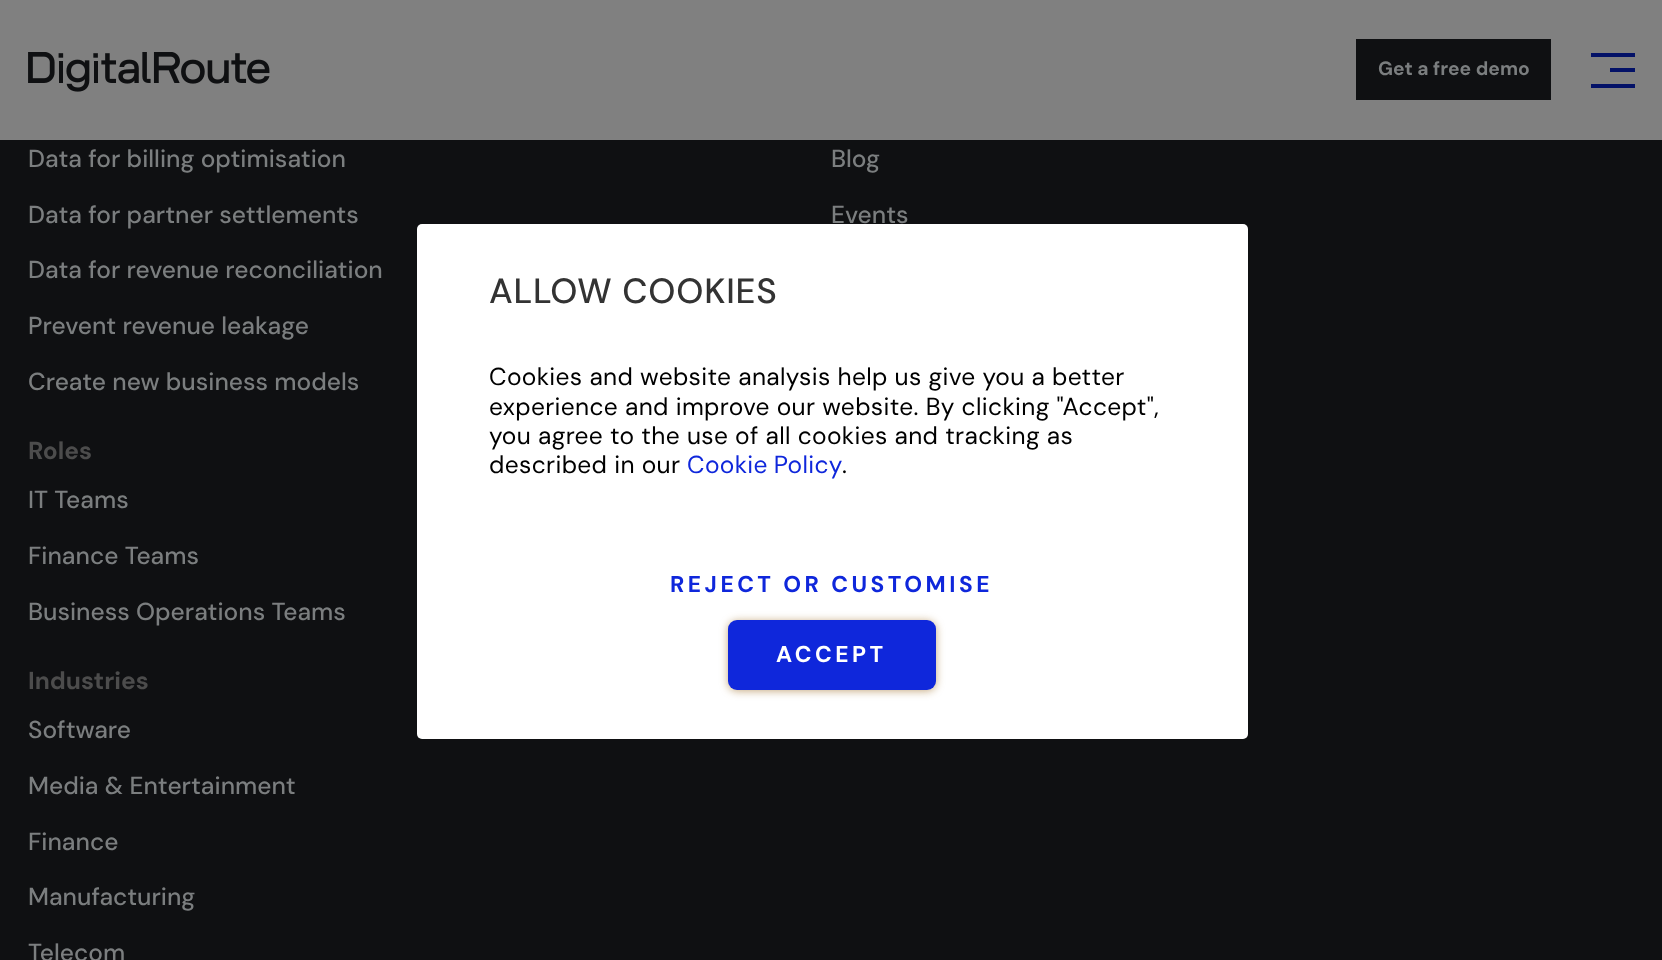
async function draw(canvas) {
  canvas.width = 1662
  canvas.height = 960
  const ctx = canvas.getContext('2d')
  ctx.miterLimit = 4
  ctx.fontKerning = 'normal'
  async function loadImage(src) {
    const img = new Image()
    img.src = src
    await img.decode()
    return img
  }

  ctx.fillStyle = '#0f1012'
  ctx.fillRect(0, 0, 1662, 960)
  ctx.fillStyle = '#808080'
  ctx.fillRect(0, 0, 1662, 140)
  ctx.drawImage(await loadImage('image0.png'), 28, 52, 242, 40)
  ctx.fillStyle = '#0f1012'
  ctx.fillRect(1356, 39, 195, 61)
  ctx.font = 'bold 19.25px DM Sans'
  ctx.fillStyle = '#7b7e7f'
  ctx.fillText('Get a free demo', 1378, 75)
  ctx.fillStyle = '#031167'
  ctx.fillRect(1591, 53, 44, 4)
  ctx.fillRect(1610, 68, 25, 4)
  ctx.fillRect(1591, 84, 44, 4)
  ctx.font = '500 24.5px DM Sans'
  ctx.fillStyle = '#7b7e7f'
  ctx.fillText('Data for billing optimisation', 28, 167)
  ctx.fillText('Data for partner settlements', 28, 223)
  ctx.fillText('Data for revenue reconciliation', 28, 278)
  ctx.fillText('Prevent revenue leakage', 28, 334)
  ctx.fillText('Create new business models', 28, 390)
  ctx.font = 'bold 24.5px DM Sans'
  ctx.fillStyle = '#4c4c4c'
  ctx.fillText('Roles', 28, 459)
  ctx.font = '500 24.5px DM Sans'
  ctx.fillStyle = '#7b7e7f'
  ctx.fillText('IT Teams', 28, 508)
  ctx.fillText('Finance Teams', 28, 564)
  ctx.fillText('Business Operations Teams', 28, 620)
  ctx.font = 'bold 24.5px DM Sans'
  ctx.fillStyle = '#4c4c4c'
  ctx.fillText('Industries', 28, 689)
  ctx.font = '500 24.5px DM Sans'
  ctx.fillStyle = '#7b7e7f'
  ctx.fillText('Software', 28, 738)
  ctx.fillText('Media & Entertainment', 28, 794)
  ctx.fillText('Finance', 28, 850)
  ctx.fillText('Manufacturing', 28, 905)
  ctx.fillText('Telecom', 28, 961)
  ctx.fillText('Blog', 831, 167)
  ctx.fillText('Events', 831, 223)
  ctx.fillStyle = '#fff'
  ctx.beginPath()
  ctx.roundRect(417, 224, 831, 515, 5)
  ctx.fill()
  ctx.letterSpacing = '0.75px'
  ctx.font = '500 35px DM Sans'
  ctx.fillStyle = '#333'
  ctx.fillText('ALLOW COOKIES', 489, 303)
  ctx.letterSpacing = '0.35px'
  ctx.font = '24.5px DM Sans'
  ctx.fillStyle = '#000'
  ctx.fillText('Cookies and website analysis help us give you a better', 489, 385)
  ctx.fillText('experience and improve our website. By clicking "Accept",', 489, 415)
  ctx.fillText('you agree to the use of all cookies and tracking as', 489, 444)
  ctx.fillText('described in our', 489, 473)
  ctx.wordSpacing = '-1px'
  ctx.fillStyle = '#0f27db'
  ctx.fillText('Cookie Policy', 687, 473)
  ctx.wordSpacing = '0px'
  ctx.fillStyle = '#000'
  ctx.fillText('.', 842, 473)
  ctx.letterSpacing = '3.5px'
  ctx.font = 'bold 22.75px DM Sans'
  ctx.fillStyle = '#0f27db'
  ctx.fillText('REJECT OR CUSTOMISE', 670, 592)
  ctx.fillStyle = '#8b530080'
  ctx.filter = 'blur(4.5px)'
  ctx.beginPath()
  ctx.roundRect(728, 621, 208, 70, 9)
  ctx.fill()
  ctx.filter = 'none'
  ctx.fillStyle = '#0f27db'
  ctx.beginPath()
  ctx.roundRect(728, 620, 208, 70, 9)
  ctx.fill()
  ctx.fillStyle = '#fff'
  ctx.fillText('ACCEPT', 776, 662)
}

draw(document.querySelector('canvas'))
